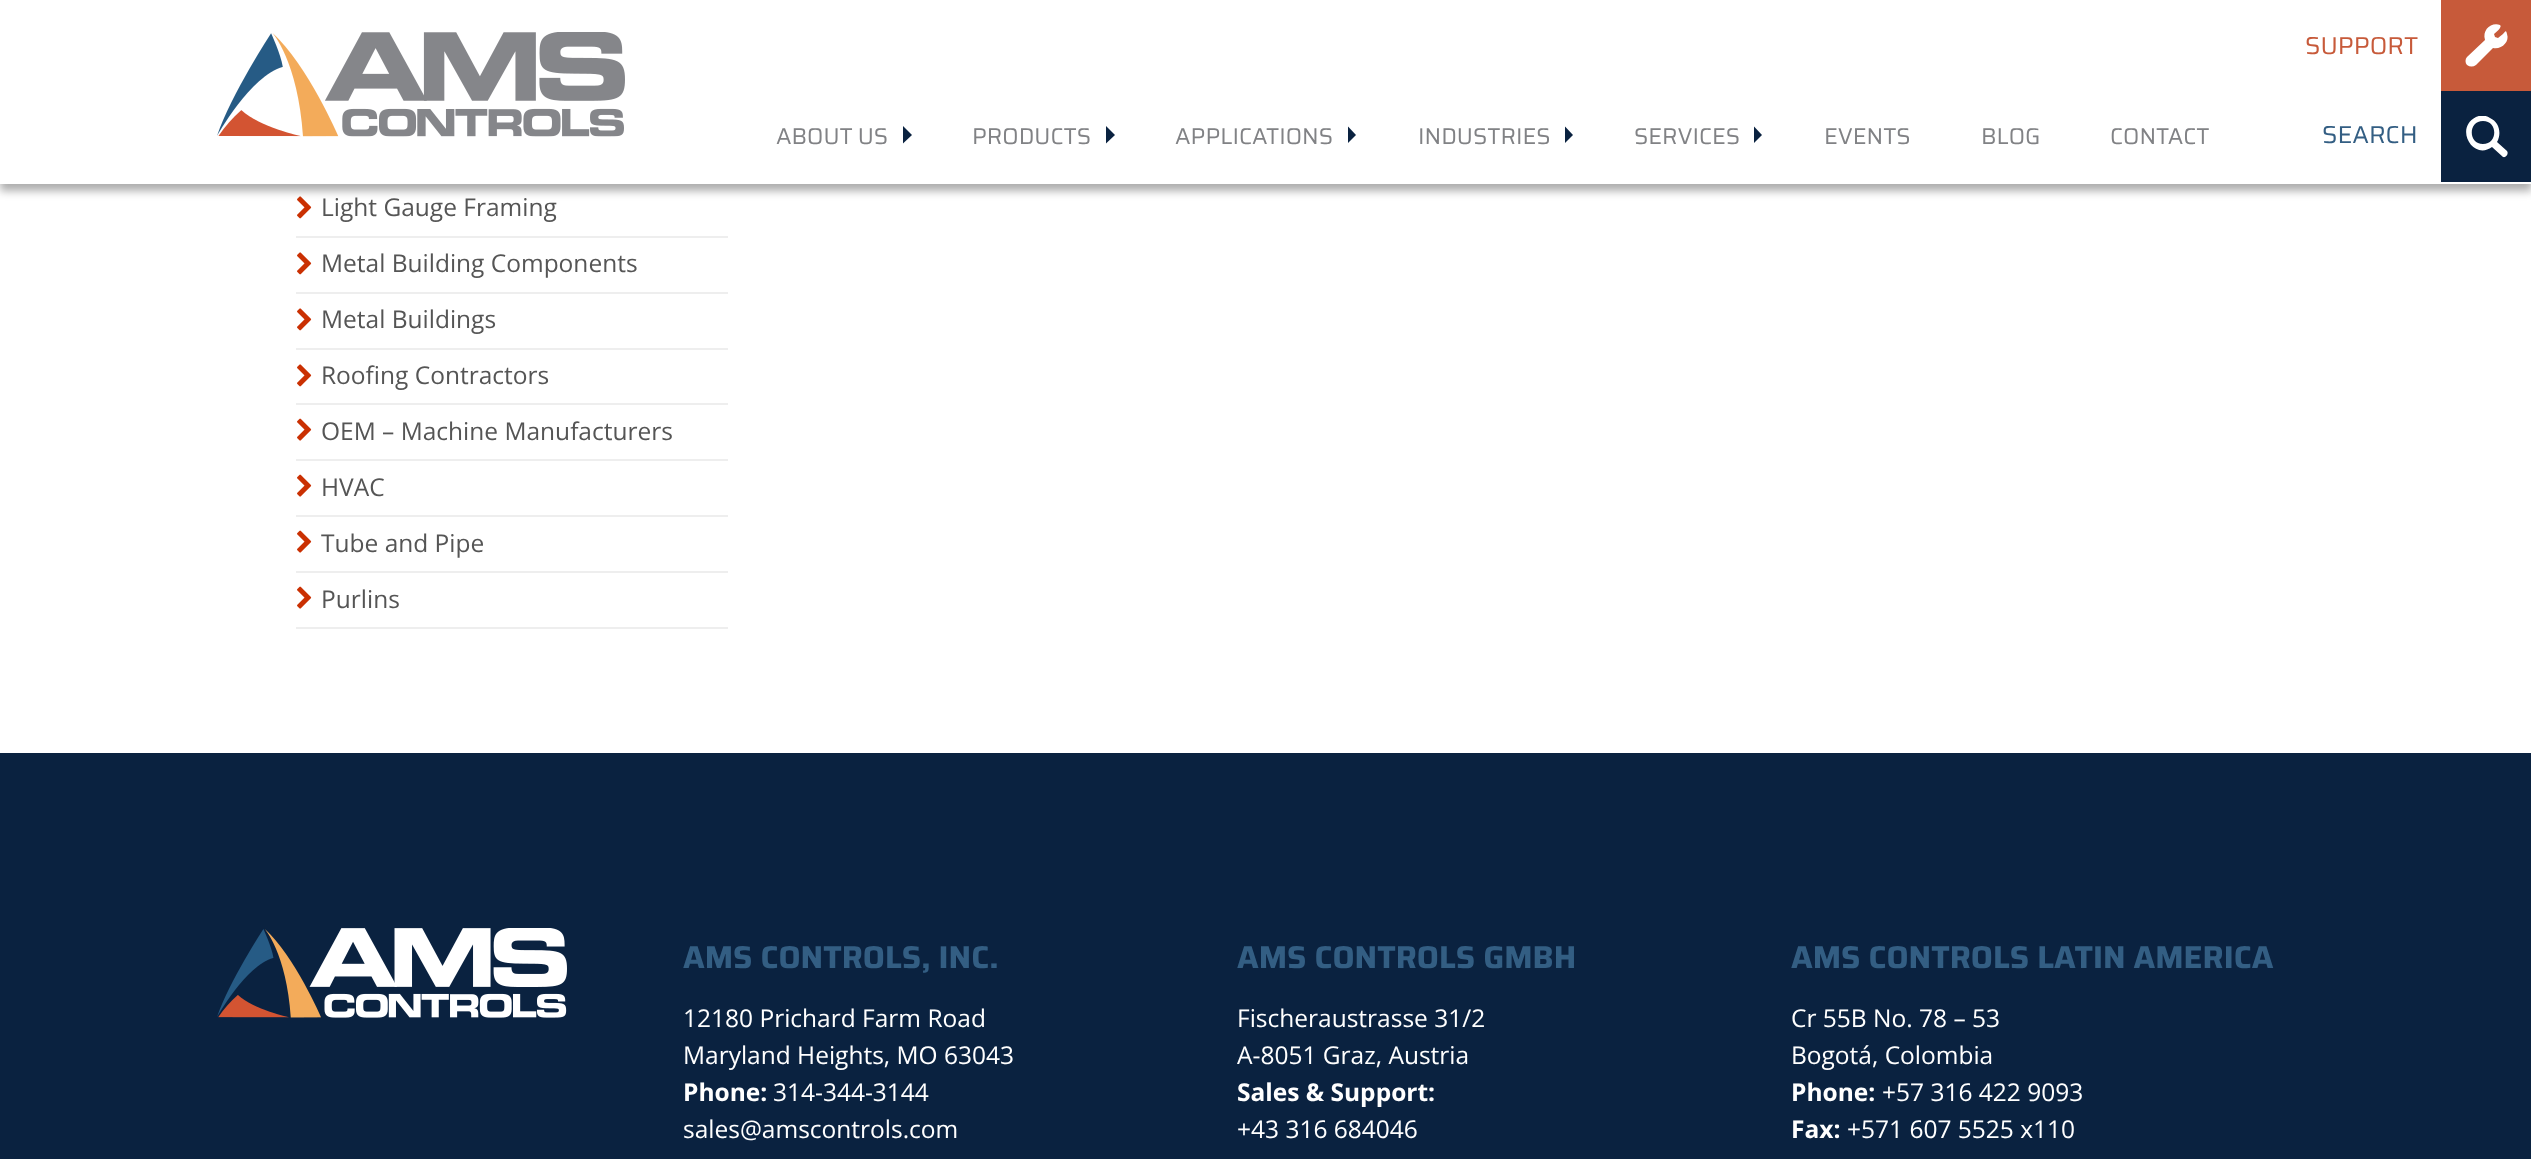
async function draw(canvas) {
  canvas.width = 2531
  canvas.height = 1159
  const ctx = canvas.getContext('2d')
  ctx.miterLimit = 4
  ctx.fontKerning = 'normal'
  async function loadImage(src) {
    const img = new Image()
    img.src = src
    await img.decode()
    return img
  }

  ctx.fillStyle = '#fff'
  ctx.fillRect(0, 0, 2531, 1159)
  ctx.drawImage(await loadImage('image1.png'), 297, 196, 15, 23)
  ctx.fillStyle = '#00000052'
  ctx.filter = 'blur(4.5px)'
  ctx.beginPath()
  ctx.rect(0, 7, 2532, 184)
  ctx.fill()
  ctx.filter = 'none'
  ctx.fillStyle = '#fff'
  ctx.fillRect(0, 0, 2531, 184)
  ctx.drawImage(await loadImage('image0.png'), 217, 32, 408, 105)
  ctx.font = '22.75px Saira'
  ctx.fillStyle = '#818285'
  ctx.fillText('ABOUT US', 776, 144)
  ctx.fillStyle = '#0a2240'
  ctx.beginPath()
  ctx.moveTo(912, 135)
  ctx.lineTo(903, 143.5)
  ctx.lineTo(903, 126)
  ctx.closePath()
  ctx.fill()
  ctx.fillStyle = '#818285'
  ctx.fillText('PRODUCTS', 972, 144)
  ctx.fillStyle = '#0a2240'
  ctx.beginPath()
  ctx.moveTo(1115, 135)
  ctx.lineTo(1106, 143.5)
  ctx.lineTo(1106, 126)
  ctx.closePath()
  ctx.fill()
  ctx.fillStyle = '#818285'
  ctx.fillText('APPLICATIONS', 1175, 144)
  ctx.save()
  ctx.beginPath()
  ctx.rect(1348, 126, 8, 18)
  ctx.clip()
  ctx.fillStyle = '#0a2240'
  ctx.beginPath()
  ctx.moveTo(1356, 135)
  ctx.lineTo(1347.5, 143.5)
  ctx.lineTo(1347.5, 126)
  ctx.closePath()
  ctx.fill()
  ctx.restore()
  ctx.fillText('INDUSTRIES', 1418, 144)
  ctx.save()
  ctx.beginPath()
  ctx.rect(1565, 126, 8, 18)
  ctx.clip()
  ctx.fillStyle = '#0a2240'
  ctx.beginPath()
  ctx.moveTo(1573, 135)
  ctx.lineTo(1564.5, 143.5)
  ctx.lineTo(1564.5, 126)
  ctx.closePath()
  ctx.fill()
  ctx.restore()
  ctx.fillText('SERVICES', 1634, 144)
  ctx.save()
  ctx.beginPath()
  ctx.rect(1754, 126, 8, 18)
  ctx.clip()
  ctx.fillStyle = '#0a2240'
  ctx.beginPath()
  ctx.moveTo(1762, 135)
  ctx.lineTo(1753.5, 143.5)
  ctx.lineTo(1753.5, 126)
  ctx.closePath()
  ctx.fill()
  ctx.restore()
  ctx.fillText('EVENTS', 1824, 144)
  ctx.fillText('BLOG', 1981, 144)
  ctx.fillText('CONTACT', 2110, 144)
  ctx.font = '24.5px Saira'
  ctx.fillStyle = '#c75a3a'
  ctx.fillText('SUPPORT', 2305, 54)
  ctx.fillRect(2441, 0, 90, 91)
  ctx.fillStyle = '#fff'
  ctx.beginPath()
  ctx.moveTo(2500, 25)
  ctx.bezierCurveTo(2503, 27, 2495, 33, 2494, 34)
  ctx.lineTo(2495, 37)
  ctx.lineTo(2498, 38)
  ctx.lineTo(2503, 34)
  ctx.bezierCurveTo(2505, 32, 2506, 29, 2507, 34)
  ctx.bezierCurveTo(2510, 42, 2501, 50, 2493, 48)
  ctx.lineTo(2476, 65)
  ctx.bezierCurveTo(2473, 67, 2470, 67, 2467, 65)
  ctx.bezierCurveTo(2465, 63, 2465, 59, 2467, 57)
  ctx.lineTo(2485, 40)
  ctx.bezierCurveTo(2482, 30, 2491, 22, 2500, 25)
  ctx.closePath()
  ctx.fill()
  ctx.fillStyle = '#335e83'
  ctx.fillText('SEARCH', 2322, 143)
  ctx.fillStyle = '#0a2240'
  ctx.fillRect(2441, 91, 90, 91)
  ctx.save()
  ctx.beginPath()
  ctx.rect(2466, 116, 42, 42)
  ctx.clip()
  ctx.fillStyle = '#fff'
  ctx.beginPath()
  ctx.moveTo(2507, 151)
  ctx.lineTo(2497, 142)
  ctx.bezierCurveTo(2502, 133, 2499, 122, 2490, 118)
  ctx.bezierCurveTo(2486, 115, 2480, 115, 2476, 117)
  ctx.bezierCurveTo(2454, 128, 2473, 161, 2492, 147)
  ctx.lineTo(2503, 157)
  ctx.bezierCurveTo(2506, 158, 2509, 154, 2507, 151)
  ctx.closePath()
  ctx.moveTo(2483, 144)
  ctx.bezierCurveTo(2468, 144, 2468, 121, 2483, 121)
  ctx.bezierCurveTo(2498, 121, 2498, 144, 2483, 144)
  ctx.closePath()
  ctx.fill()
  ctx.restore()
  ctx.fillStyle = '#eee'
  ctx.fillRect(296, 236, 432, 2)
  ctx.font = '24.5px Open Sans'
  ctx.fillStyle = '#555'
  ctx.fillText('Light Gauge Framing', 321, 216)
  ctx.fillStyle = '#eee'
  ctx.fillRect(296, 292, 432, 2)
  ctx.drawImage(await loadImage('image1.png'), 297, 252, 15, 23)
  ctx.fillStyle = '#555'
  ctx.fillText('Metal Building Components', 321, 272)
  ctx.fillStyle = '#eee'
  ctx.fillRect(296, 348, 432, 2)
  ctx.drawImage(await loadImage('image1.png'), 297, 308, 15, 23)
  ctx.fillStyle = '#555'
  ctx.fillText('Metal Buildings', 321, 328)
  ctx.fillStyle = '#eee'
  ctx.fillRect(296, 403, 432, 2)
  ctx.drawImage(await loadImage('image1.png'), 297, 364, 15, 23)
  ctx.fillStyle = '#555'
  ctx.fillText('Roofing Contractors', 321, 384)
  ctx.fillStyle = '#eee'
  ctx.fillRect(296, 459, 432, 2)
  ctx.drawImage(await loadImage('image2.png'), 297, 418, 15, 23)
  ctx.fillStyle = '#555'
  ctx.fillText('OEM – Machine Manufacturers', 321, 440)
  ctx.fillStyle = '#eee'
  ctx.fillRect(296, 515, 432, 2)
  ctx.drawImage(await loadImage('image2.png'), 297, 474, 15, 23)
  ctx.fillStyle = '#555'
  ctx.fillText('HVAC', 321, 496)
  ctx.fillStyle = '#eee'
  ctx.fillRect(296, 571, 432, 2)
  ctx.drawImage(await loadImage('image2.png'), 297, 530, 15, 23)
  ctx.fillStyle = '#555'
  ctx.fillText('Tube and Pipe', 321, 552)
  ctx.fillStyle = '#eee'
  ctx.fillRect(296, 627, 432, 2)
  ctx.drawImage(await loadImage('image2.png'), 297, 586, 15, 23)
  ctx.fillStyle = '#555'
  ctx.fillText('Purlins', 321, 608)
  ctx.fillStyle = '#0a2240'
  ctx.fillRect(0, 753, 2531, 406)
  ctx.drawImage(await loadImage('image3.png'), 217, 928, 350, 90)
  ctx.font = 'bold 31.5px Saira'
  ctx.fillStyle = '#335e83'
  ctx.fillText('AMS CONTROLS, INC.', 683, 968)
  ctx.font = '24.5px Open Sans'
  ctx.fillStyle = '#fff'
  ctx.fillText('12180 Prichard Farm Road', 683, 1027)
  ctx.fillText('Maryland Heights, MO 63043', 683, 1064)
  ctx.font = 'bold 24.5px Open Sans'
  ctx.fillText('Phone:', 683, 1101)
  ctx.font = '24.5px Open Sans'
  ctx.fillText('314-344-3144', 773, 1101)
  ctx.fillText('sales@amscontrols.com', 683, 1138)
  ctx.font = 'bold 31.5px Saira'
  ctx.fillStyle = '#335e83'
  ctx.fillText('AMS CONTROLS GMBH', 1237, 968)
  ctx.font = '24.5px Open Sans'
  ctx.fillStyle = '#fff'
  ctx.fillText('Fischeraustrasse 31/2', 1237, 1027)
  ctx.fillText('A-8051 Graz, Austria', 1237, 1064)
  ctx.font = 'bold 24.5px Open Sans'
  ctx.fillText('Sales & Support:', 1237, 1101)
  ctx.font = '24.5px Open Sans'
  ctx.fillText('+43 316 684046', 1237, 1138)
  ctx.font = 'bold 31.5px Saira'
  ctx.fillStyle = '#335e83'
  ctx.fillText('AMS CONTROLS LATIN AMERICA', 1791, 968)
  ctx.font = '24.5px Open Sans'
  ctx.fillStyle = '#fff'
  ctx.fillText('Cr 55B No. 78 – 53', 1791, 1027)
  ctx.fillText('Bogotá, Colombia', 1791, 1064)
  ctx.font = 'bold 24.5px Open Sans'
  ctx.fillText('Phone:', 1791, 1101)
  ctx.font = '24.5px Open Sans'
  ctx.fillText('+57 316 422 9093', 1882, 1101)
  ctx.font = 'bold 24.5px Open Sans'
  ctx.fillText('Fax:', 1791, 1138)
  ctx.font = '24.5px Open Sans'
  ctx.fillText('+571 607 5525 x110', 1847, 1138)
}

draw(document.querySelector('canvas'))
